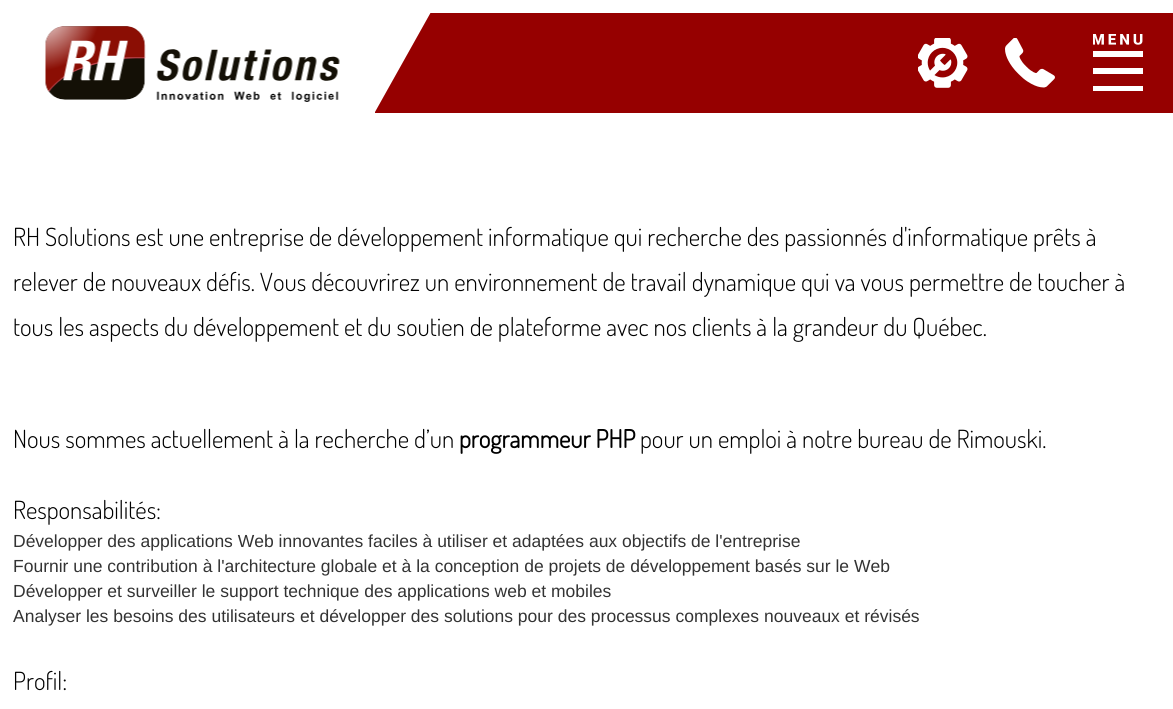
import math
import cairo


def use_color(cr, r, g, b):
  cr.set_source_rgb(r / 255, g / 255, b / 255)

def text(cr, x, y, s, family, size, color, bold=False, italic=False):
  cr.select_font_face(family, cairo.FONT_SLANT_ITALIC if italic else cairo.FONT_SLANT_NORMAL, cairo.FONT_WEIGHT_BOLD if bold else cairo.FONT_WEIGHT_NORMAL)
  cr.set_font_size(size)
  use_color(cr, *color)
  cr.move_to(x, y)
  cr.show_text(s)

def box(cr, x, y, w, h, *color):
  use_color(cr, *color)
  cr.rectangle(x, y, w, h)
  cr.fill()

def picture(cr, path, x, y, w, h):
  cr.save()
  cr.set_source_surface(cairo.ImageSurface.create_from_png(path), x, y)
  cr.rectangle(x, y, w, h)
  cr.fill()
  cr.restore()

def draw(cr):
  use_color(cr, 255, 255, 255)
  cr.paint()
  box(cr, 375, 13, 798, 100, 150, 0, 0)
  picture(cr, "img_01.png", 45, 26, 295, 76)
  use_color(cr, 255, 255, 255)
  cr.new_path()
  cr.move_to(375, 12)
  cr.line_to(431, 12)
  cr.line_to(375, 112)
  cr.close_path()
  cr.fill()
  picture(cr, "img_02.png", 918, 38, 50, 50)
  picture(cr, "img_03.png", 1005, 38, 50, 50)
  picture(cr, "img_04.png", 1093, 34, 50, 57)
  text(cr, 13, 246, "RH Solutions est une entreprise de développement informatique qui recherche des passionnés d'informatique prêts à", "Dosis Light", 25, (0, 0, 0))
  text(cr, 13, 291, "relever de nouveaux défis. Vous découvrirez un environnement de travail dynamique qui va vous permettre de toucher à", "Dosis Light", 25, (0, 0, 0))
  text(cr, 13, 336, "tous les aspects du développement et du soutien de plateforme avec nos clients à la grandeur du Québec.", "Dosis Light", 25, (0, 0, 0))
  text(cr, 13, 448, "Nous sommes actuellement à la recherche d’un", "Dosis Light", 25, (0, 0, 0))
  text(cr, 459, 448, "programmeur PHP", "Dosis", 25, (0, 0, 0), bold=True)
  text(cr, 640, 448, "pour un emploi à notre bureau de Rimouski.", "Dosis Light", 25, (0, 0, 0))
  text(cr, 13, 519, "Responsabilités:", "Dosis Light", 25, (0, 0, 0))
  text(cr, 13, 547, "Développer des applications Web innovantes faciles à utiliser et adaptées aux objectifs de l'entreprise", "Liberation Sans", 17.5, (51, 51, 51))
  text(cr, 13, 572, "Fournir une contribution à l'architecture globale et à la conception de projets de développement basés sur le Web", "Liberation Sans", 17.5, (51, 51, 51))
  text(cr, 13, 597, "Développer et surveiller le support technique des applications web et mobiles", "Liberation Sans", 17.5, (51, 51, 51))
  text(cr, 13, 622, "Analyser les besoins des utilisateurs et développer des solutions pour des processus complexes nouveaux et révisés", "Liberation Sans", 17.5, (51, 51, 51))
  text(cr, 13, 690, "Profil:", "Dosis Light", 25, (0, 0, 0))


surface = cairo.ImageSurface(cairo.FORMAT_RGB24, 1173, 709)
cr = cairo.Context(surface)
options = cairo.FontOptions()
options.set_hint_metrics(cairo.HINT_METRICS_OFF)
options.set_hint_style(cairo.HINT_STYLE_NONE)
cr.set_font_options(options)
cr.set_miter_limit(4)
draw(cr)
surface.write_to_png("out.png")
